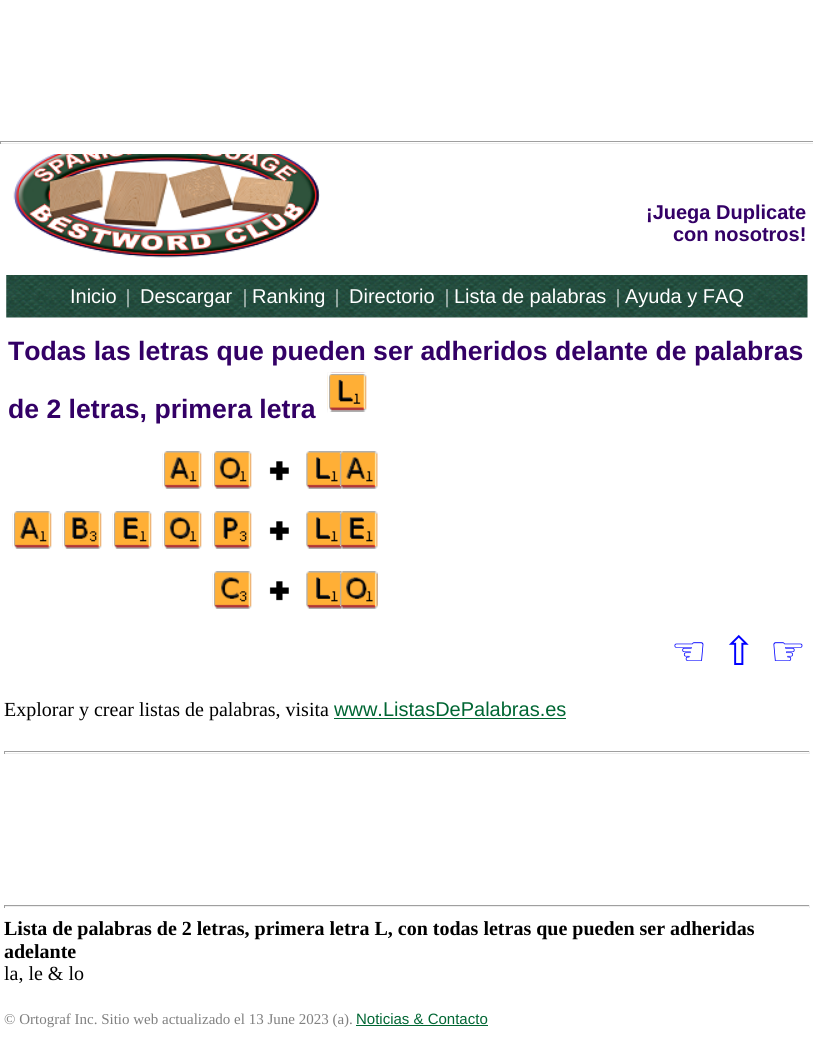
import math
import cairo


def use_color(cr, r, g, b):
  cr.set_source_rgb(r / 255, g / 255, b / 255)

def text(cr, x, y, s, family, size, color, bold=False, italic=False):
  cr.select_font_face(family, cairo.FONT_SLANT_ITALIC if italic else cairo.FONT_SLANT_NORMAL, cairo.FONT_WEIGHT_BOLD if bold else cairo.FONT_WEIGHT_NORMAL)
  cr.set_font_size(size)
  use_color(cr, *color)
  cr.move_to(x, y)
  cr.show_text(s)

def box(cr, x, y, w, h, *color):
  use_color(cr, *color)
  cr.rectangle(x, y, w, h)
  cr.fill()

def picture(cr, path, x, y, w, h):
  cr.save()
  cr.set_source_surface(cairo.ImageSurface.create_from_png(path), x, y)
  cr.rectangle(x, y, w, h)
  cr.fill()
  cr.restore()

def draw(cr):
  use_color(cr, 255, 255, 255)
  cr.paint()
  box(cr, 0, 141, 813, 1, 159, 159, 159)
  box(cr, 0, 143, 813, 1, 238, 238, 238)
  box(cr, 0, 141, 1, 3, 159, 159, 159)
  picture(cr, "img_01.png", 13, 154, 307, 104)
  picture(cr, "img_02.png", 6, 275, 802, 43)
  picture(cr, "img_03.png", 327, 372, 41, 41)
  cr.rectangle(328.5, 373.5, 39, 39)
  use_color(cr, 255, 255, 255)
  cr.set_line_width(1)
  cr.stroke()
  picture(cr, "img_04.png", 162, 450, 40, 40)
  cr.rectangle(163.5, 450.5, 39, 39)
  cr.stroke()
  picture(cr, "img_05.png", 212, 450, 40, 40)
  cr.rectangle(213.5, 450.5, 39, 39)
  cr.stroke()
  picture(cr, "img_06.png", 269, 461, 20, 20)
  picture(cr, "img_07.png", 306, 451, 72, 38)
  picture(cr, "img_08.png", 12, 510, 40, 40)
  cr.rectangle(13.5, 510.5, 39, 39)
  cr.stroke()
  picture(cr, "img_09.png", 62, 510, 40, 40)
  cr.rectangle(63.5, 510.5, 39, 39)
  cr.stroke()
  picture(cr, "img_10.png", 112, 510, 40, 40)
  cr.rectangle(113.5, 510.5, 39, 39)
  cr.stroke()
  picture(cr, "img_11.png", 162, 510, 40, 40)
  cr.rectangle(163.5, 510.5, 39, 39)
  cr.stroke()
  picture(cr, "img_12.png", 212, 510, 40, 40)
  cr.rectangle(213.5, 510.5, 39, 39)
  cr.stroke()
  picture(cr, "img_06.png", 269, 521, 20, 20)
  picture(cr, "img_13.png", 306, 511, 72, 38)
  picture(cr, "img_14.png", 212, 570, 40, 40)
  cr.rectangle(213.5, 570.5, 39, 39)
  cr.stroke()
  picture(cr, "img_06.png", 269, 581, 20, 20)
  picture(cr, "img_15.png", 306, 571, 72, 38)
  box(cr, 334, 718, 232, 1, 0, 102, 51)
  box(cr, 4, 751, 806, 1, 159, 159, 159)
  box(cr, 809, 751, 1, 3, 238, 238, 238)
  box(cr, 4, 753, 806, 1, 238, 238, 238)
  box(cr, 4, 751, 1, 3, 159, 159, 159)
  box(cr, 4, 905, 806, 1, 159, 159, 159)
  box(cr, 809, 905, 1, 3, 238, 238, 238)
  box(cr, 4, 906, 806, 1, 238, 238, 238)
  box(cr, 4, 905, 1, 3, 159, 159, 159)
  box(cr, 356, 1025, 132, 1, 0, 102, 51)
  text(cr, 646, 219, "¡Juega Duplicate", "Liberation Sans", 20, (51, 0, 102), bold=True)
  text(cr, 673, 241, "con nosotros!", "Liberation Sans", 20, (51, 0, 102), bold=True)
  text(cr, 70, 303, "Inicio", "Liberation Sans", 20, (255, 255, 255))
  text(cr, 126, 303, "|", "Liberation Serif", 20, (255, 255, 255))
  text(cr, 140, 303, "Descargar", "Liberation Sans", 20, (255, 255, 255))
  text(cr, 243, 303, "|", "Liberation Serif", 20, (255, 255, 255))
  text(cr, 252, 303, "Ranking", "Liberation Sans", 20, (255, 255, 255))
  text(cr, 335, 303, "|", "Liberation Serif", 20, (255, 255, 255))
  text(cr, 349, 303, "Directorio", "Liberation Sans", 20, (255, 255, 255))
  text(cr, 445, 303, "|", "Liberation Serif", 20, (255, 255, 255))
  text(cr, 454, 303, "Lista de palabras", "Liberation Sans", 20, (255, 255, 255))
  text(cr, 616, 303, "|", "Liberation Serif", 20, (255, 255, 255))
  text(cr, 625, 303, "Ayuda y FAQ", "Liberation Sans", 20, (255, 255, 255))
  text(cr, 8, 360, "Todas las letras que pueden ser adheridos delante de palabras", "Liberation Sans", 26.6, (51, 0, 102), bold=True)
  text(cr, 8, 418, "de 2 letras, primera letra", "Liberation Sans", 26.6, (51, 0, 102), bold=True)
  text(cr, 671, 665, "☜", "DejaVu Sans", 40, (0, 0, 255))
  text(cr, 722, 665, "⇧", "DejaVu Sans", 40, (0, 0, 255))
  text(cr, 770, 665, "☞", "DejaVu Sans", 40, (0, 0, 255))
  text(cr, 4, 716, "Explorar y crear listas de palabras, visita", "Liberation Serif", 20, (0, 0, 0))
  text(cr, 334, 716, "www.ListasDePalabras.es", "Liberation Sans", 20, (0, 102, 51))
  text(cr, 4, 935, "Lista de palabras de 2 letras, primera letra L, con todas letras que pueden ser adheridas", "Liberation Serif", 20, (0, 0, 0), bold=True)
  text(cr, 4, 958, "adelante", "Liberation Serif", 20, (0, 0, 0), bold=True)
  text(cr, 4, 980, "la, le & lo", "Liberation Serif", 20, (0, 0, 0))
  text(cr, 4, 1024, "© Ortograf Inc. Sitio web actualizado el 13 June 2023 (a).", "Liberation Serif", 15, (128, 128, 128))
  text(cr, 356, 1024, "Noticias & Contacto", "Liberation Sans", 15, (0, 102, 51))


surface = cairo.ImageSurface(cairo.FORMAT_RGB24, 813, 1063)
cr = cairo.Context(surface)
options = cairo.FontOptions()
options.set_hint_metrics(cairo.HINT_METRICS_OFF)
options.set_hint_style(cairo.HINT_STYLE_NONE)
cr.set_font_options(options)
cr.set_miter_limit(4)
draw(cr)
surface.write_to_png("out.png")
